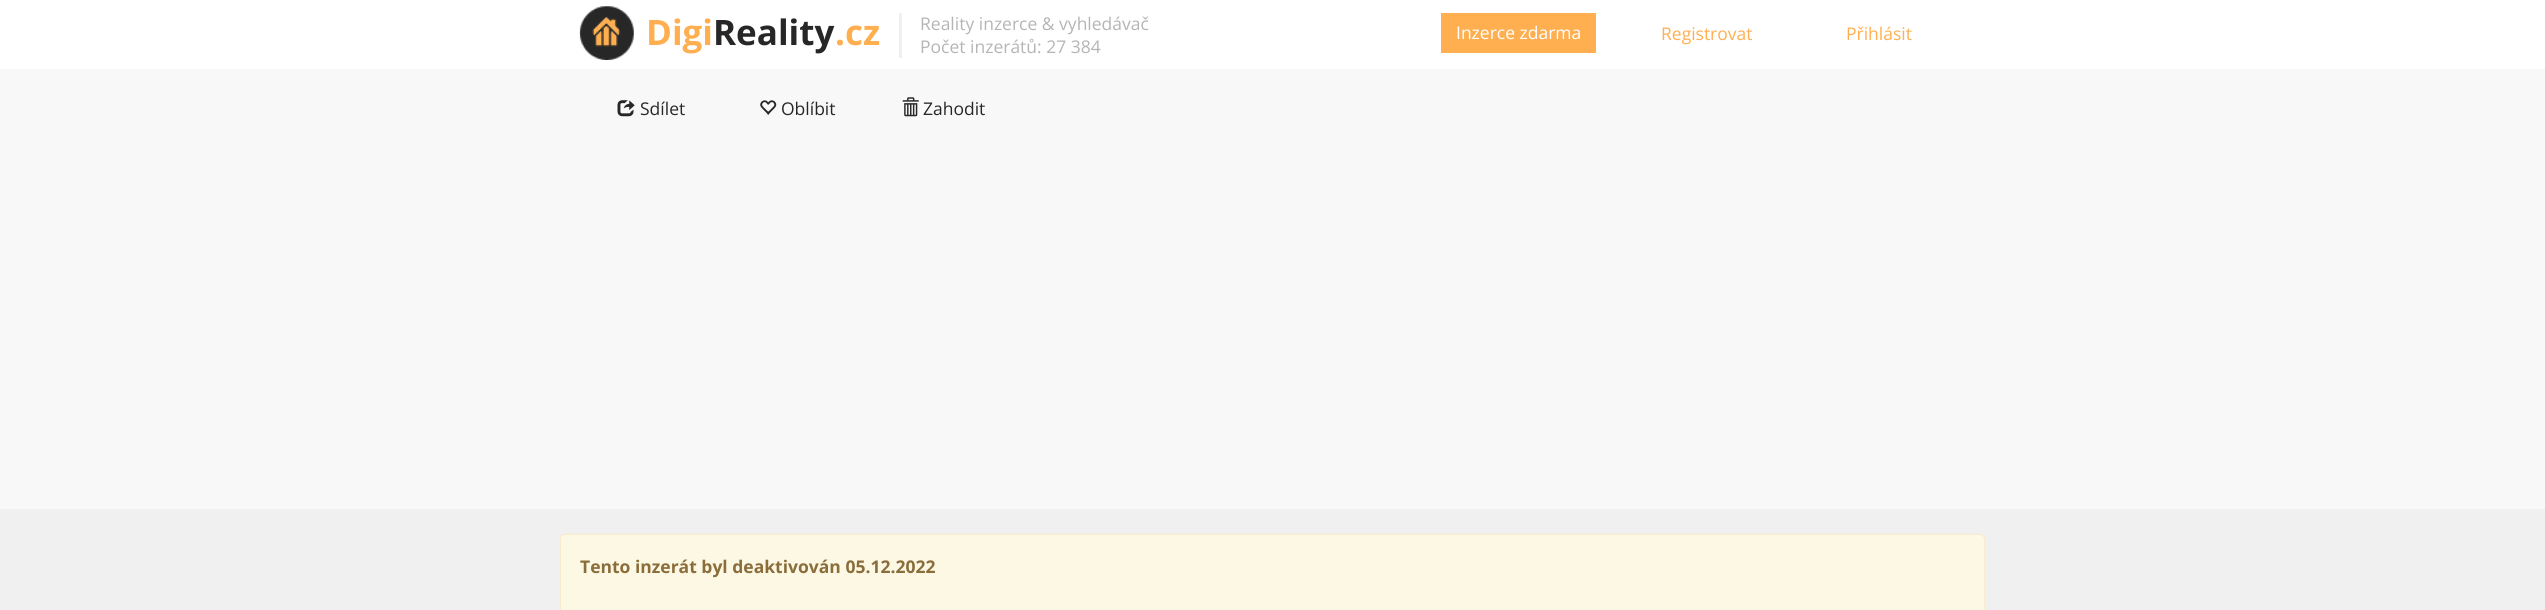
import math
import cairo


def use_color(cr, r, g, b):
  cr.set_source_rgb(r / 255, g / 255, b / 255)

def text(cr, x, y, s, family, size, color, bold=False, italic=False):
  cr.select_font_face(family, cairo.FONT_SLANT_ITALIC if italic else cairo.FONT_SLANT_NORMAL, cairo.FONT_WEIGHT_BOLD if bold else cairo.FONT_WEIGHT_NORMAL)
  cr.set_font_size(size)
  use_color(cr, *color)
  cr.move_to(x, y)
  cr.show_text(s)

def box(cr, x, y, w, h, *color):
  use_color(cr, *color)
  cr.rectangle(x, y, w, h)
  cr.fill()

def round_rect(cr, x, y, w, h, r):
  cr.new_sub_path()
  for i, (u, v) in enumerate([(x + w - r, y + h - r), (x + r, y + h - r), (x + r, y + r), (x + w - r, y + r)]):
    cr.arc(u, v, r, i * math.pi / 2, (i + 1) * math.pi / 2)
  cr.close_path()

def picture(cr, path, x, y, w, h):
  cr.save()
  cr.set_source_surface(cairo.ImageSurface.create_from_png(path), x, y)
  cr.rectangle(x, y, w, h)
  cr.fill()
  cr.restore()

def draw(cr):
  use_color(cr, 240, 240, 240)
  cr.paint()
  box(cr, 0, 0, 2545, 69, 255, 255, 255)
  picture(cr, "img_01.png", 579, 5, 55, 55)
  box(cr, 899, 13, 3, 45, 240, 240, 240)
  box(cr, 1441, 13, 155, 40, 255, 175, 80)
  box(cr, 0, 69, 2545, 440, 248, 248, 248)
  picture(cr, "img_02.png", 617, 100, 18, 17)
  picture(cr, "img_03.png", 760, 100, 17, 15)
  picture(cr, "img_04.png", 902, 97, 17, 20)
  use_color(cr, 252, 248, 227)
  round_rect(cr, 560.5, 534.5, 1424, 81, 4.5)
  cr.fill_preserve()
  use_color(cr, 250, 235, 204)
  cr.set_line_width(1)
  cr.stroke()
  text(cr, 646, 45, "Digi", "Open Sans", 35, (255, 175, 80), bold=True)
  text(cr, 713, 45, "Reality", "Open Sans", 35, (39, 39, 39), bold=True)
  text(cr, 835, 45, ".cz", "Open Sans", 35, (255, 175, 80), bold=True)
  text(cr, 920, 30, "Reality inzerce & vyhledávač", "Open Sans", 17.5, (181, 181, 181))
  text(cr, 920, 53, "Počet inzerátů: 27 384", "Open Sans", 17.5, (181, 181, 181))
  text(cr, 1456, 39, "Inzerce zdarma", "Open Sans", 17.5, (255, 255, 255))
  text(cr, 1661, 40, "Registrovat", "Open Sans", 17.5, (255, 175, 80))
  text(cr, 1846, 40, "Přihlásit", "Open Sans", 17.5, (255, 175, 80))
  text(cr, 640, 115, "Sdílet", "Open Sans", 17.5, (39, 39, 39))
  text(cr, 781, 115, "Oblíbit", "Open Sans", 17.5, (39, 39, 39))
  text(cr, 923, 115, "Zahodit", "Open Sans", 17.5, (39, 39, 39))
  text(cr, 580, 573, "Tento inzerát byl deaktivován 05.12.2022", "Open Sans", 17.5, (138, 109, 59), bold=True)


surface = cairo.ImageSurface(cairo.FORMAT_RGB24, 2545, 610)
cr = cairo.Context(surface)
options = cairo.FontOptions()
options.set_hint_metrics(cairo.HINT_METRICS_OFF)
options.set_hint_style(cairo.HINT_STYLE_NONE)
cr.set_font_options(options)
cr.set_miter_limit(4)
draw(cr)
surface.write_to_png("out.png")
